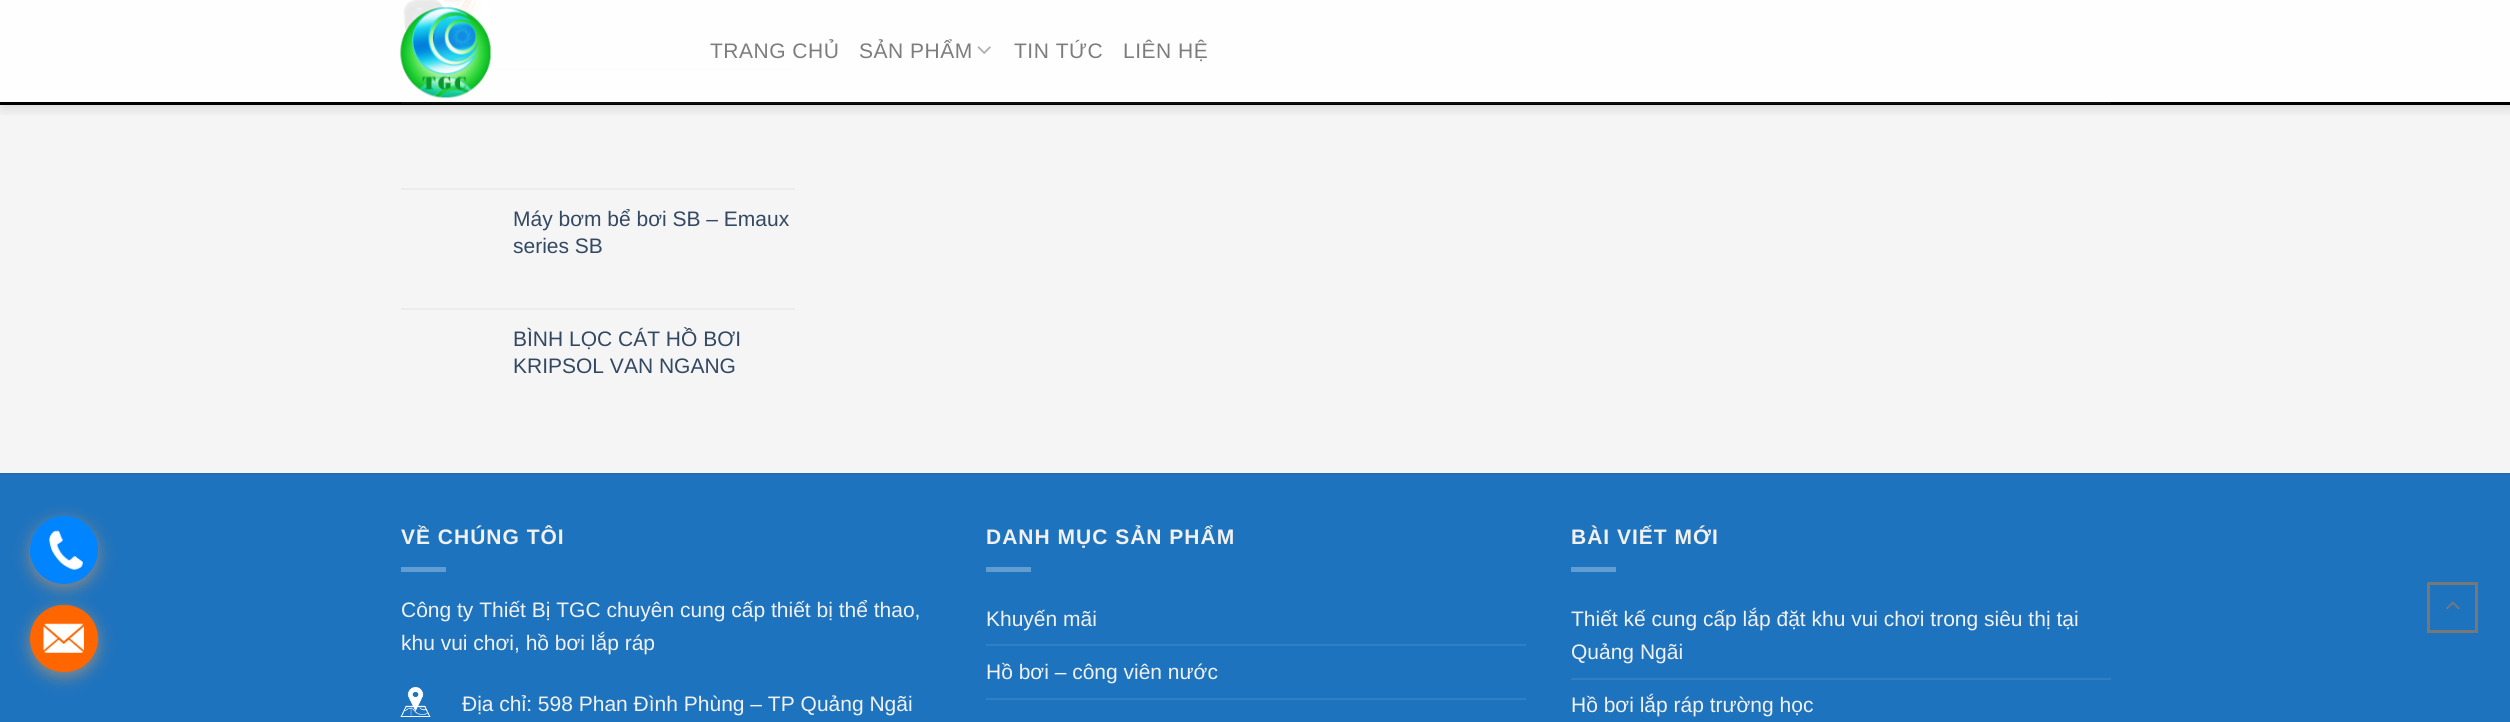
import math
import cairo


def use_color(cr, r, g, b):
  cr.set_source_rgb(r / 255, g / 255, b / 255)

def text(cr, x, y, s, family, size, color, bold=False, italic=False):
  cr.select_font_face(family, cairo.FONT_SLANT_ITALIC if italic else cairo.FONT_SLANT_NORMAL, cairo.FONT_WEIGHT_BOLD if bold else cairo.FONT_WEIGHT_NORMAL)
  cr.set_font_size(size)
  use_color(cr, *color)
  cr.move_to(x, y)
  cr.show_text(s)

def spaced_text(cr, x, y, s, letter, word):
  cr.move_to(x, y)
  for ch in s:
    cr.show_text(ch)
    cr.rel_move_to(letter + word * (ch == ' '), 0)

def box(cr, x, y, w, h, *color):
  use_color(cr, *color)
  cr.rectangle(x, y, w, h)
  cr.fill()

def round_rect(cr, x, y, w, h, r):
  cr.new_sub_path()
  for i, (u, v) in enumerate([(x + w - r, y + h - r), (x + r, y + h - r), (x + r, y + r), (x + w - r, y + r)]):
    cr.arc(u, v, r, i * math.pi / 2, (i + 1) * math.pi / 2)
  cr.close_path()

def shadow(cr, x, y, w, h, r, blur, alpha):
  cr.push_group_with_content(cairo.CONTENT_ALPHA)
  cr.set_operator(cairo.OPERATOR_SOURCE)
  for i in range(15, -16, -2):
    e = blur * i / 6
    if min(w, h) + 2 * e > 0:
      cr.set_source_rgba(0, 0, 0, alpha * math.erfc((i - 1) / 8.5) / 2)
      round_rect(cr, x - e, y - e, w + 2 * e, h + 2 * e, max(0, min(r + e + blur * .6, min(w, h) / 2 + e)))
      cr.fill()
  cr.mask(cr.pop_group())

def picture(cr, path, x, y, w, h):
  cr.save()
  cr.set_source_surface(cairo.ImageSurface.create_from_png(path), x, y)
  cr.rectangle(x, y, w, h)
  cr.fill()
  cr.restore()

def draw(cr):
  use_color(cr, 245, 245, 245)
  cr.paint()
  box(cr, 0, 475, 2510, 247, 30, 115, 190)
  use_color(cr, 136, 136, 136)
  shadow(cr, 30, 521, 68, 67, 33.5, 7.5, 1)
  use_color(cr, 0, 132, 255)
  cr.arc(64, 550, 34, 0, 2 * math.pi)
  cr.fill()
  picture(cr, "img_01.png", 49, 530, 34, 40)
  use_color(cr, 136, 136, 136)
  shadow(cr, 30, 609, 68, 68, 34, 7.5, 1)
  use_color(cr, 255, 102, 0)
  round_rect(cr, 30, 605, 68, 67, 33.5)
  cr.fill()
  picture(cr, "img_02.png", 43, 623, 41, 30)
  picture(cr, "img_05.png", 401, 0, 90, 54)
  box(cr, 401, 68, 394, 2, 236, 236, 236)
  cr.save()
  cr.rectangle(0, 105, 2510, 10)
  cr.clip()
  use_color(cr, 0, 0, 0)
  shadow(cr, 2, 2, 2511, 105, 0, 7.5, 0.15)
  cr.restore()
  cr.set_source_rgba(1, 1, 1, 0.9)
  cr.rectangle(0, 0, 2510, 102)
  cr.fill()
  box(cr, 0, 102, 2510, 3, 0, 0, 0)
  picture(cr, "img_03.png", 400, 7, 91, 91)
  picture(cr, "img_04.png", 977, 46, 14, 8)
  box(cr, 401, 102, 1710, 2, 12, 12, 12)
  box(cr, 401, 188, 394, 2, 236, 236, 236)
  box(cr, 401, 308, 394, 2, 236, 236, 236)
  box(cr, 0, 473, 2510, 2, 29, 109, 181)
  box(cr, 401, 567, 45, 5, 98, 157, 210)
  picture(cr, "img_06.png", 400, 687, 31, 30)
  box(cr, 986, 567, 45, 5, 98, 157, 210)
  box(cr, 986, 644, 540, 2, 48, 126, 195)
  box(cr, 986, 698, 540, 2, 48, 126, 195)
  box(cr, 1571, 567, 45, 5, 98, 157, 210)
  box(cr, 1571, 678, 540, 2, 48, 126, 195)
  cr.rectangle(2428.5, 583.5, 48, 48)
  use_color(cr, 119, 119, 119)
  cr.set_line_width(3)
  cr.stroke()
  picture(cr, "img_07.png", 2446, 601, 14, 9)
  cr.select_font_face("Liberation Sans")
  cr.set_font_size(21)
  use_color(cr, 125, 125, 125)
  spaced_text(cr, 710, 58, "TRANG CHỦ", 0.5, 0)
  spaced_text(cr, 859, 58, "SẢN PHẨM", 0.5, 0)
  spaced_text(cr, 1014, 58, "TIN TỨC", 0.5, 0)
  spaced_text(cr, 1123, 58, "LIÊN HỆ", 0.5, 0)
  text(cr, 513, 226, "Máy bơm bể bơi SB – Emaux", "Liberation Sans", 21, (51, 72, 98))
  text(cr, 513, 253, "series SB", "Liberation Sans", 21, (51, 72, 98))
  text(cr, 513, 346, "BÌNH LỌC CÁT HỒ BƠI", "Liberation Sans", 21, (51, 72, 98))
  text(cr, 513, 373, "KRIPSOL VAN NGANG", "Liberation Sans", 21, (51, 72, 98))
  cr.select_font_face("Liberation Sans", cairo.FONT_SLANT_NORMAL, cairo.FONT_WEIGHT_BOLD)
  use_color(cr, 241, 241, 241)
  spaced_text(cr, 401, 544, "VỀ CHÚNG TÔI", 1, 0)
  text(cr, 401, 617, "Công ty Thiết Bị TGC chuyên cung cấp thiết bị thể thao,", "Liberation Sans", 21, (241, 241, 241))
  text(cr, 401, 650, "khu vui chơi, hồ bơi lắp ráp", "Liberation Sans", 21, (241, 241, 241))
  text(cr, 462, 711, "Địa chỉ: 598 Phan Đình Phùng – TP Quảng Ngãi", "Liberation Sans", 21, (241, 241, 241))
  cr.select_font_face("Liberation Sans", cairo.FONT_SLANT_NORMAL, cairo.FONT_WEIGHT_BOLD)
  spaced_text(cr, 986, 544, "DANH MỤC SẢN PHẨM", 1, 0)
  text(cr, 986, 626, "Khuyến mãi", "Liberation Sans", 21, (241, 241, 241))
  text(cr, 986, 679, "Hồ bơi – công viên nước", "Liberation Sans", 21, (241, 241, 241))
  cr.select_font_face("Liberation Sans", cairo.FONT_SLANT_NORMAL, cairo.FONT_WEIGHT_BOLD)
  spaced_text(cr, 1571, 544, "BÀI VIẾT MỚI", 1, 0)
  text(cr, 1571, 626, "Thiết kế cung cấp lắp đặt khu vui chơi trong siêu thị tại", "Liberation Sans", 21, (241, 241, 241))
  text(cr, 1571, 659, "Quảng Ngãi", "Liberation Sans", 21, (241, 241, 241))
  text(cr, 1571, 712, "Hồ bơi lắp ráp trường học", "Liberation Sans", 21, (241, 241, 241))


surface = cairo.ImageSurface(cairo.FORMAT_RGB24, 2510, 722)
cr = cairo.Context(surface)
options = cairo.FontOptions()
options.set_hint_metrics(cairo.HINT_METRICS_OFF)
options.set_hint_style(cairo.HINT_STYLE_NONE)
cr.set_font_options(options)
cr.set_miter_limit(4)
draw(cr)
surface.write_to_png("out.png")
